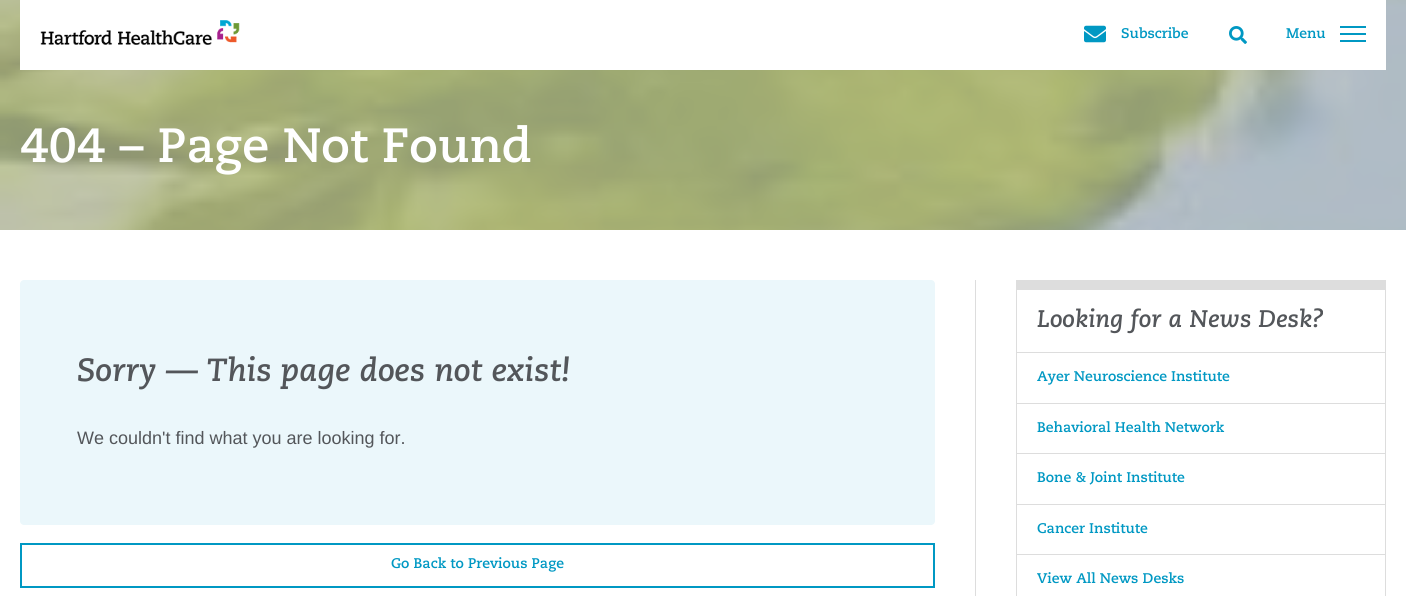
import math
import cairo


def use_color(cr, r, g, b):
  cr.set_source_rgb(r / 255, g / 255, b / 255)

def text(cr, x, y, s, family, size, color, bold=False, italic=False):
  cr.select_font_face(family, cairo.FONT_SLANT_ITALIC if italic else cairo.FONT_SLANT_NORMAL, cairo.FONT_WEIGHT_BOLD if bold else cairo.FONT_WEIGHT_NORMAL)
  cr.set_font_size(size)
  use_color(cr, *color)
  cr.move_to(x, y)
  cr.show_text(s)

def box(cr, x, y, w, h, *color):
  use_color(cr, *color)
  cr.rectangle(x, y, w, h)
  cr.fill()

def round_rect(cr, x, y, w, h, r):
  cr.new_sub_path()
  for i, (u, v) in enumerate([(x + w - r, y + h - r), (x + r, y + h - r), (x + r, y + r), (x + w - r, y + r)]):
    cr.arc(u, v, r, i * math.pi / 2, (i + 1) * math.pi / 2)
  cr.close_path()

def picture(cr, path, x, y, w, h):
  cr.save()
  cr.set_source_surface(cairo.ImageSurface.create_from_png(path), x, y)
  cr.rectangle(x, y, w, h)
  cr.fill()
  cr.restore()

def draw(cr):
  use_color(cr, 255, 255, 255)
  cr.paint()
  picture(cr, "img_04.png", 0, 0, 1406, 230)
  box(cr, 20, 0, 1366, 70, 255, 255, 255)
  picture(cr, "img_01.png", 40, 20, 200, 25)
  picture(cr, "img_02.png", 1084, 25, 22, 18)
  picture(cr, "img_03.png", 1229, 26, 18, 18)
  box(cr, 1340, 26, 26, 2, 0, 152, 195)
  box(cr, 1340, 33, 26, 2, 0, 152, 195)
  box(cr, 1340, 40, 26, 2, 0, 152, 195)
  box(cr, 975, 280, 1, 316, 221, 221, 221)
  use_color(cr, 235, 247, 251)
  round_rect(cr, 20, 280, 915, 245, 4)
  cr.fill()
  cr.rectangle(21, 544, 913, 43)
  use_color(cr, 0, 152, 195)
  cr.stroke()
  box(cr, 1017, 280, 368, 10, 221, 221, 221)
  box(cr, 1385, 280, 1, 316, 221, 221, 221)
  box(cr, 1016, 280, 1, 316, 221, 221, 221)
  box(cr, 1017, 352, 368, 1, 221, 221, 221)
  box(cr, 1017, 403, 368, 1, 221, 221, 221)
  box(cr, 1017, 453, 368, 1, 221, 221, 221)
  box(cr, 1017, 504, 368, 1, 221, 221, 221)
  box(cr, 1017, 554, 368, 1, 221, 221, 221)
  text(cr, 1121, 38, "Subscribe", "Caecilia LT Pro", 14, (0, 152, 195), bold=True)
  text(cr, 1286, 38, "Menu", "Caecilia LT Pro", 14, (0, 152, 195), bold=True)
  text(cr, 20, 162, "404 – Page Not Found", "Caecilia LT Pro", 48, (255, 255, 255), bold=True)
  text(cr, 77, 381, "Sorry — This page does not exist!", "Caecilia LT Pro", 32, (83, 86, 90), bold=True, italic=True)
  text(cr, 77, 444, "We couldn't find what you are looking for.", "Liberation Sans", 18, (83, 86, 90))
  text(cr, 391, 568, "Go Back to Previous Page", "Caecilia LT Pro", 14, (0, 152, 195), bold=True)
  text(cr, 1037, 327, "Looking for a News Desk?", "Caecilia LT Pro", 24, (83, 86, 90), bold=True, italic=True)
  text(cr, 1037, 381, "Ayer Neuroscience Institute", "Caecilia LT Pro", 14, (0, 152, 195), bold=True)
  text(cr, 1037, 432, "Behavioral Health Network", "Caecilia LT Pro", 14, (0, 152, 195), bold=True)
  text(cr, 1037, 482, "Bone & Joint Institute", "Caecilia LT Pro", 14, (0, 152, 195), bold=True)
  text(cr, 1037, 533, "Cancer Institute", "Caecilia LT Pro", 14, (0, 152, 195), bold=True)
  text(cr, 1037, 583, "View All News Desks", "Caecilia LT Pro", 14, (0, 152, 195), bold=True)


surface = cairo.ImageSurface(cairo.FORMAT_RGB24, 1406, 596)
cr = cairo.Context(surface)
options = cairo.FontOptions()
options.set_hint_metrics(cairo.HINT_METRICS_OFF)
options.set_hint_style(cairo.HINT_STYLE_NONE)
cr.set_font_options(options)
cr.set_miter_limit(4)
draw(cr)
surface.write_to_png("out.png")
